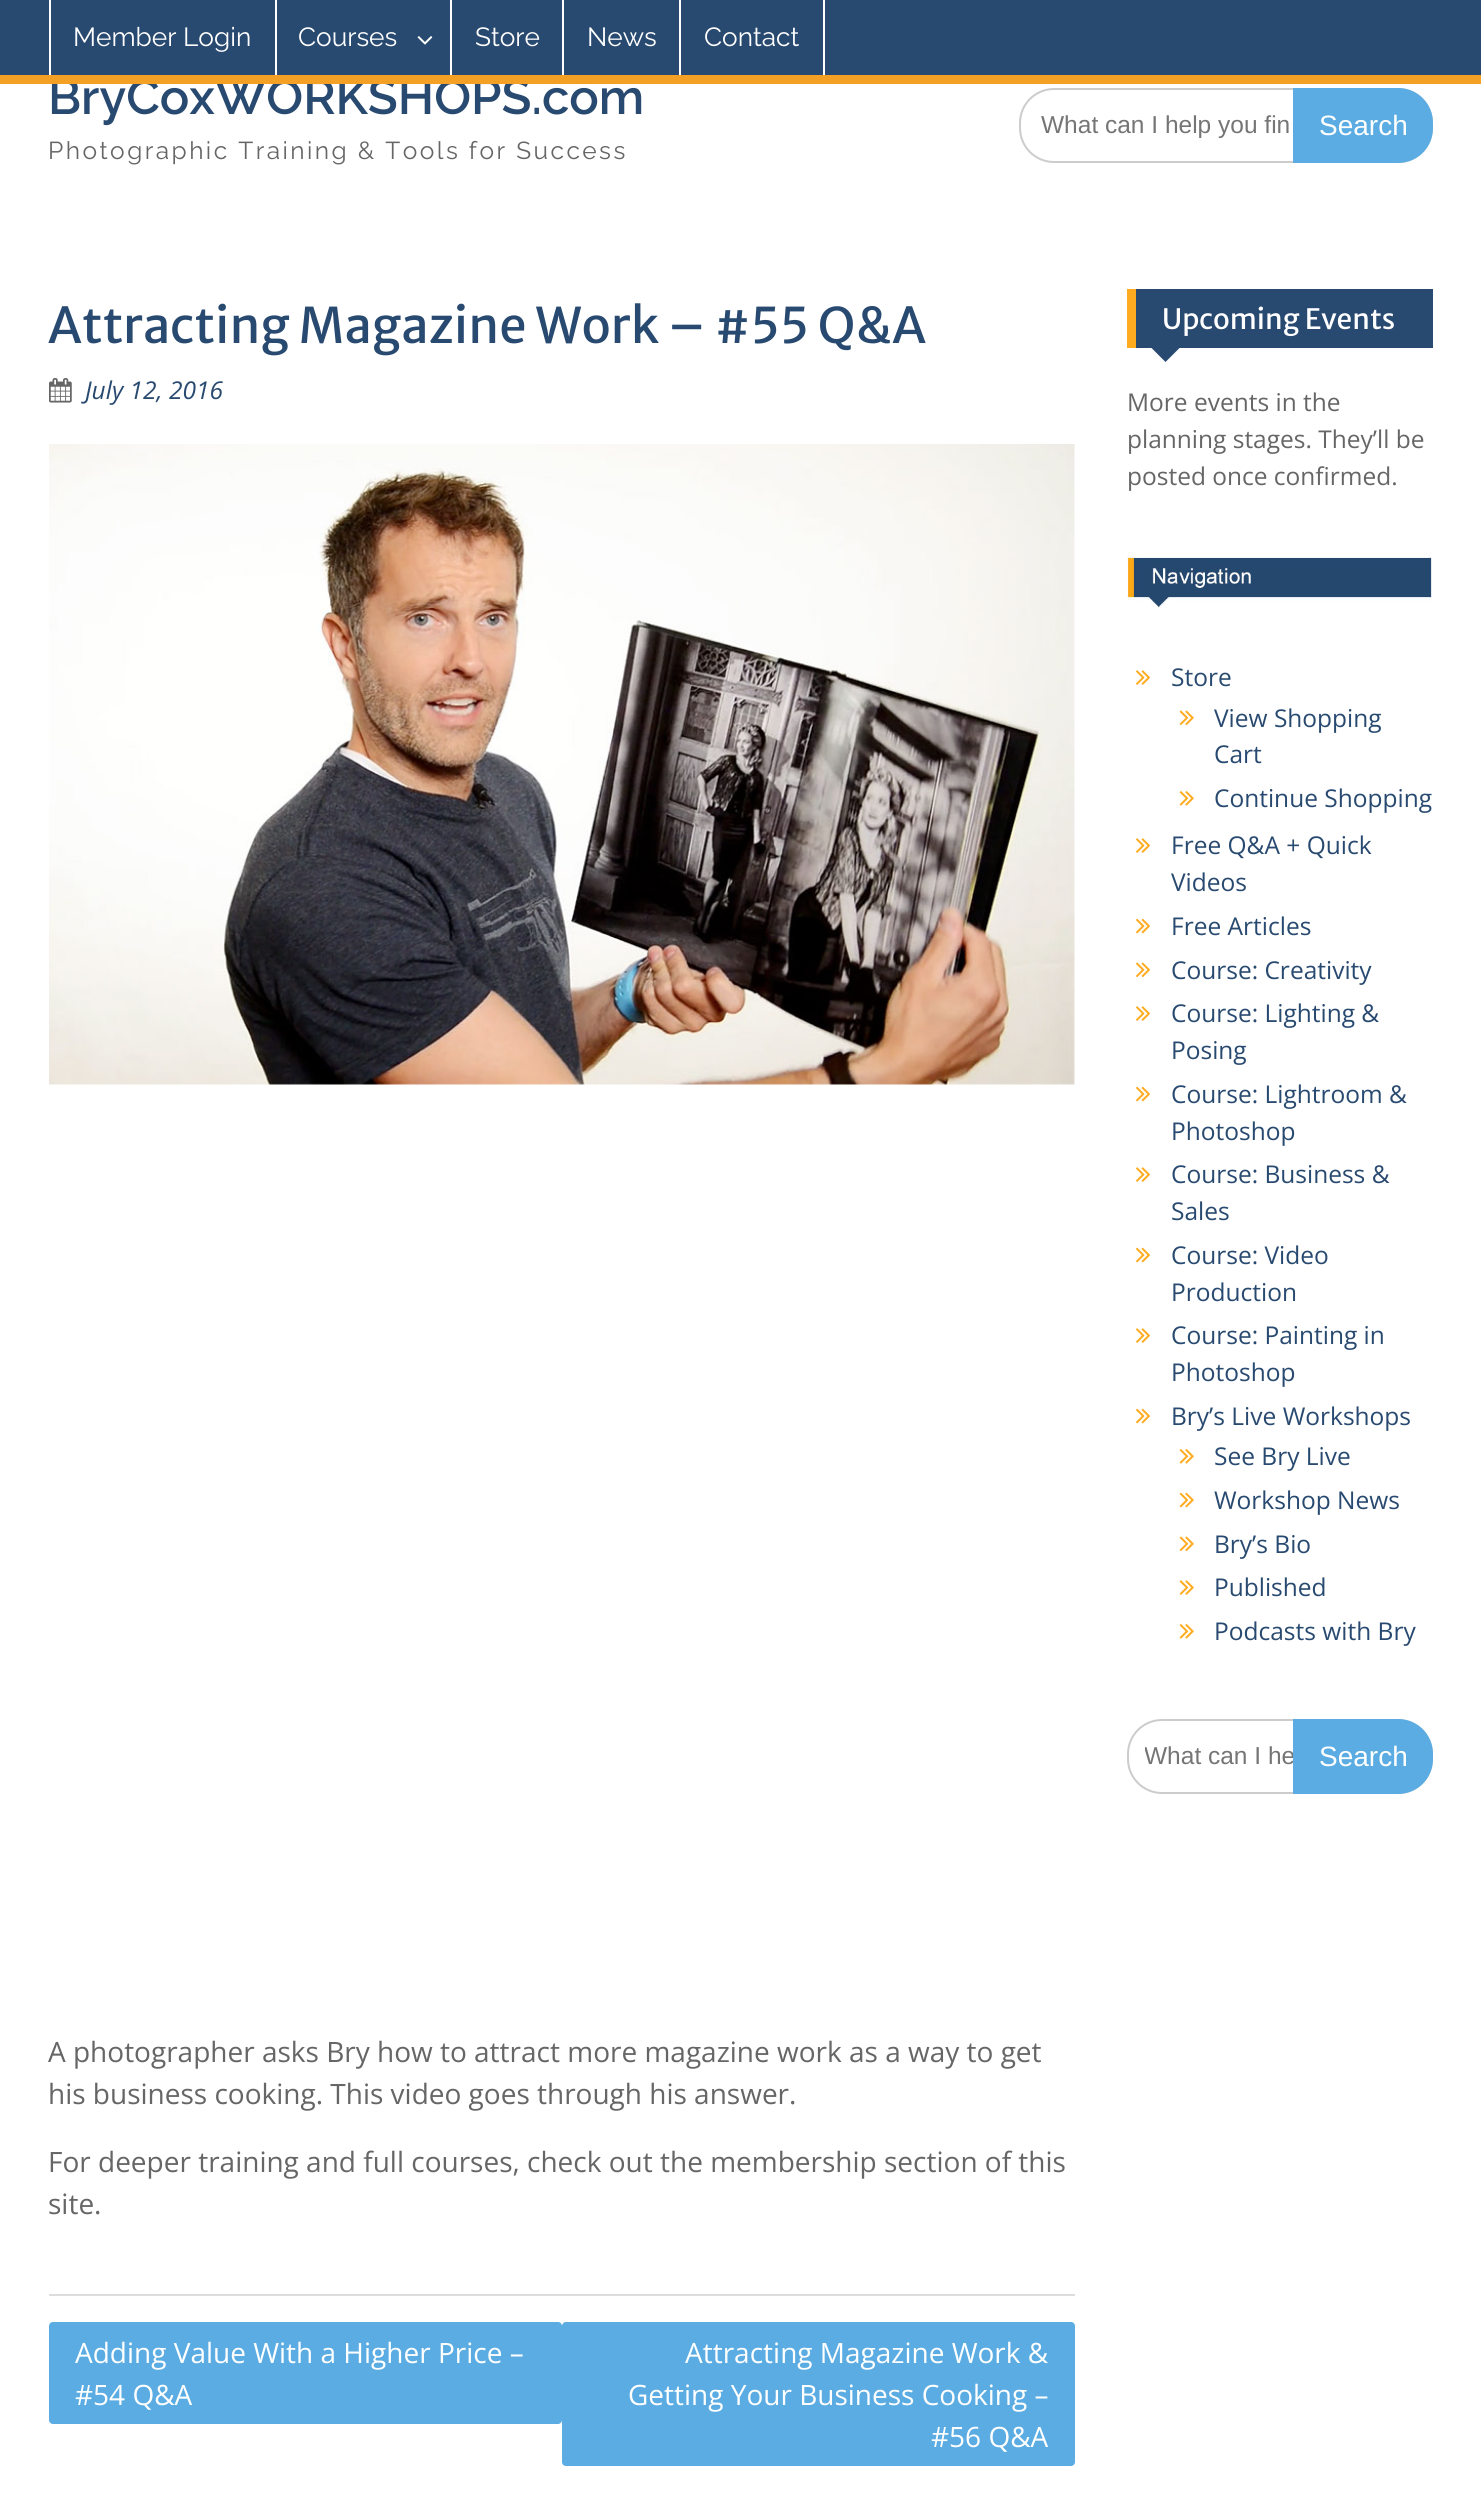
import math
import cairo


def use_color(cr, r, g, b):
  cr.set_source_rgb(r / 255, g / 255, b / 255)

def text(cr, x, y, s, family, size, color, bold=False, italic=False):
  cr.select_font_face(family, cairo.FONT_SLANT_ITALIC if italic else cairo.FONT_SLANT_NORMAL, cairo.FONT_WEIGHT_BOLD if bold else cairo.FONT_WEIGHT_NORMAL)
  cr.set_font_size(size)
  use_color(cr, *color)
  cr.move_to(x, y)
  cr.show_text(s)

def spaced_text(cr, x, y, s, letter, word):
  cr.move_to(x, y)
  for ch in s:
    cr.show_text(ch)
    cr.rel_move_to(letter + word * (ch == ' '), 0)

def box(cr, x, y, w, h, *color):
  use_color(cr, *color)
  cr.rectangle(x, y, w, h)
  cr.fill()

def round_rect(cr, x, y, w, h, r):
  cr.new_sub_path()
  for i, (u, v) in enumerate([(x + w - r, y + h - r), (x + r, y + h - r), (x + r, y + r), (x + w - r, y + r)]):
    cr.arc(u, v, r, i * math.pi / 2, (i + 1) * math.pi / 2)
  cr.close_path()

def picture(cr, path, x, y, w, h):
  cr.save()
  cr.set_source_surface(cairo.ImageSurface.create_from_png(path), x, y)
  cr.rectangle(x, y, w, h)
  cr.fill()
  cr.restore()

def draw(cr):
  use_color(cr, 255, 255, 255)
  cr.paint()
  box(cr, 0, 0, 1481, 75, 41, 74, 112)
  box(cr, 275, 0, 2, 75, 255, 255, 255)
  box(cr, 49, 0, 2, 75, 255, 255, 255)
  box(cr, 450, 0, 2, 75, 255, 255, 255)
  picture(cr, "img_01.png", 417, 36, 16, 9)
  box(cr, 562, 0, 2, 75, 255, 255, 255)
  box(cr, 679, 0, 2, 75, 255, 255, 255)
  box(cr, 823, 0, 2, 75, 255, 255, 255)
  round_rect(cr, 1020, 89, 412, 73, 34)
  use_color(cr, 204, 204, 204)
  cr.stroke()
  use_color(cr, 90, 172, 226)
  cr.new_path()
  cr.move_to(1293, 88)
  cr.line_to(1398, 88)
  cr.curve_to(1417.5, 88, 1433, 103.5, 1433, 123)
  cr.line_to(1433, 128)
  cr.curve_to(1433, 147.5, 1417.5, 163, 1398, 163)
  cr.line_to(1293, 163)
  cr.close_path()
  cr.fill()
  box(cr, 49, 2294, 1026, 2, 221, 221, 221)
  picture(cr, "img_02.png", 49, 378, 23, 25)
  picture(cr, "img_03.png", 49, 444, 1026, 641)
  use_color(cr, 90, 172, 226)
  round_rect(cr, 49, 2322, 513, 102, 4)
  cr.fill()
  round_rect(cr, 562, 2322, 513, 144, 4)
  cr.fill()
  box(cr, 1136, 289, 297, 59, 41, 74, 112)
  box(cr, 1127, 289, 9, 59, 255, 171, 31)
  use_color(cr, 41, 74, 112)
  cr.new_path()
  cr.move_to(1150, 346.5)
  cr.line_to(1181, 346.5)
  cr.line_to(1165.5, 362)
  cr.close_path()
  cr.fill()
  picture(cr, "img_04.png", 1127, 556, 305, 53)
  picture(cr, "img_05.png", 1136, 670, 14, 15)
  picture(cr, "img_06.png", 1179, 710, 15, 16)
  picture(cr, "img_07.png", 1179, 791, 15, 15)
  picture(cr, "img_05.png", 1136, 838, 14, 15)
  picture(cr, "img_08.png", 1136, 918, 14, 16)
  picture(cr, "img_09.png", 1136, 962, 14, 16)
  picture(cr, "img_05.png", 1136, 1006, 14, 15)
  picture(cr, "img_08.png", 1136, 1086, 14, 16)
  picture(cr, "img_05.png", 1136, 1167, 14, 15)
  picture(cr, "img_08.png", 1136, 1247, 14, 16)
  picture(cr, "img_05.png", 1136, 1328, 14, 15)
  picture(cr, "img_08.png", 1136, 1408, 14, 16)
  picture(cr, "img_07.png", 1179, 1449, 15, 15)
  picture(cr, "img_10.png", 1179, 1492, 15, 16)
  picture(cr, "img_06.png", 1179, 1536, 15, 16)
  picture(cr, "img_11.png", 1179, 1580, 15, 15)
  picture(cr, "img_07.png", 1179, 1624, 15, 15)
  round_rect(cr, 1128, 1720, 304, 73, 34)
  use_color(cr, 204, 204, 204)
  cr.stroke()
  text(cr, 73, 46, "Member Login", "Raleway", 26.25, (255, 255, 255))
  text(cr, 298, 46, "Courses", "Raleway", 26.25, (255, 255, 255))
  text(cr, 475, 46, "Store", "Raleway", 26.25, (255, 255, 255))
  text(cr, 587, 46, "News", "Raleway", 26.25, (255, 255, 255))
  text(cr, 704, 46, "Contact", "Raleway", 26.25, (255, 255, 255))
  text(cr, 48, 114, "BryCoxWORKSHOPS.com", "Raleway SemiBold", 49, (41, 74, 112))
  box(cr, 0, 75, 1481, 9, 244, 160, 36)
  cr.select_font_face("Raleway")
  cr.set_font_size(24.5)
  use_color(cr, 102, 102, 102)
  spaced_text(cr, 48, 159, "Photographic Training & Tools for Success", 2.45, 0)
  cr.save()
  cr.rectangle(1041, 110, 280, 28)
  cr.clip()
  text(cr, 1041, 133, "What can I help you fin", "Liberation Sans", 24.5, (117, 117, 117))
  cr.restore()
  text(cr, 1319, 135, "Search", "Liberation Sans", 28, (255, 255, 255))
  text(cr, 48, 343, "Attracting Magazine Work – #55 Q&A", "Merriweather Sans", 49, (41, 74, 112))
  text(cr, 85, 399, "July 12, 2016", "Open Sans", 24.5, (41, 74, 112), italic=True)
  text(cr, 48, 2062, "A photographer asks Bry how to attract more magazine work as a way to get", "Open Sans", 28, (102, 102, 102))
  text(cr, 48, 2104, "his business cooking. This video goes through his answer.", "Open Sans", 28, (102, 102, 102))
  text(cr, 48, 2172, "For deeper training and full courses, check out the membership section of this", "Open Sans", 28, (102, 102, 102))
  text(cr, 48, 2214, "site.", "Open Sans", 28, (102, 102, 102))
  text(cr, 75, 2363, "Adding Value With a Higher Price –", "Open Sans", 28, (255, 255, 255))
  text(cr, 75, 2405, "#54 Q&A", "Open Sans", 28, (255, 255, 255))
  text(cr, 685, 2363, "Attracting Magazine Work &", "Open Sans", 28, (255, 255, 255))
  text(cr, 628, 2405, "Getting Your Business Cooking –", "Open Sans", 28, (255, 255, 255))
  text(cr, 931, 2447, "#56 Q&A", "Open Sans", 28, (255, 255, 255))
  text(cr, 1162, 329, "Upcoming Events", "Merriweather Sans", 28, (255, 255, 255))
  text(cr, 1127, 411, "More events in the", "Open Sans", 24.5, (102, 102, 102))
  text(cr, 1127, 448, "planning stages. They’ll be", "Open Sans", 24.5, (102, 102, 102))
  text(cr, 1127, 485, "posted once confirmed.", "Open Sans", 24.5, (102, 102, 102))
  text(cr, 1171, 686, "Store", "Open Sans", 24.5, (41, 74, 112))
  text(cr, 1214, 727, "View Shopping", "Open Sans", 24.5, (41, 74, 112))
  text(cr, 1214, 763, "Cart", "Open Sans", 24.5, (41, 74, 112))
  text(cr, 1214, 807, "Continue Shopping", "Open Sans", 24.5, (41, 74, 112))
  text(cr, 1171, 854, "Free Q&A + Quick", "Open Sans", 24.5, (41, 74, 112))
  text(cr, 1171, 891, "Videos", "Open Sans", 24.5, (41, 74, 112))
  text(cr, 1171, 935, "Free Articles", "Open Sans", 24.5, (41, 74, 112))
  text(cr, 1171, 979, "Course: Creativity", "Open Sans", 24.5, (41, 74, 112))
  text(cr, 1171, 1022, "Course: Lighting &", "Open Sans", 24.5, (41, 74, 112))
  text(cr, 1171, 1059, "Posing", "Open Sans", 24.5, (41, 74, 112))
  text(cr, 1171, 1103, "Course: Lightroom &", "Open Sans", 24.5, (41, 74, 112))
  text(cr, 1171, 1140, "Photoshop", "Open Sans", 24.5, (41, 74, 112))
  text(cr, 1171, 1183, "Course: Business &", "Open Sans", 24.5, (41, 74, 112))
  text(cr, 1171, 1220, "Sales", "Open Sans", 24.5, (41, 74, 112))
  text(cr, 1171, 1264, "Course: Video", "Open Sans", 24.5, (41, 74, 112))
  text(cr, 1171, 1301, "Production", "Open Sans", 24.5, (41, 74, 112))
  text(cr, 1171, 1344, "Course: Painting in", "Open Sans", 24.5, (41, 74, 112))
  text(cr, 1171, 1381, "Photoshop", "Open Sans", 24.5, (41, 74, 112))
  text(cr, 1171, 1425, "Bry’s Live Workshops", "Open Sans", 24.5, (41, 74, 112))
  text(cr, 1214, 1465, "See Bry Live", "Open Sans", 24.5, (41, 74, 112))
  text(cr, 1214, 1509, "Workshop News", "Open Sans", 24.5, (41, 74, 112))
  text(cr, 1214, 1553, "Bry’s Bio", "Open Sans", 24.5, (41, 74, 112))
  text(cr, 1214, 1596, "Published", "Open Sans", 24.5, (41, 74, 112))
  text(cr, 1214, 1640, "Podcasts with Bry", "Open Sans", 24.5, (41, 74, 112))
  cr.save()
  cr.rectangle(1145, 1741, 203, 28)
  cr.clip()
  text(cr, 1144, 1764, "What can I he", "Liberation Sans", 24.5, (117, 117, 117))
  cr.restore()
  use_color(cr, 90, 172, 226)
  cr.new_path()
  cr.move_to(1293, 1719)
  cr.line_to(1398, 1719)
  cr.curve_to(1417.5, 1719, 1433, 1734.5, 1433, 1754)
  cr.line_to(1433, 1759)
  cr.curve_to(1433, 1778.5, 1417.5, 1794, 1398, 1794)
  cr.line_to(1293, 1794)
  cr.close_path()
  cr.fill()
  text(cr, 1319, 1766, "Search", "Liberation Sans", 28, (255, 255, 255))


surface = cairo.ImageSurface(cairo.FORMAT_RGB24, 1481, 2502)
cr = cairo.Context(surface)
options = cairo.FontOptions()
options.set_hint_metrics(cairo.HINT_METRICS_OFF)
options.set_hint_style(cairo.HINT_STYLE_NONE)
cr.set_font_options(options)
cr.set_miter_limit(4)
draw(cr)
surface.write_to_png("out.png")
